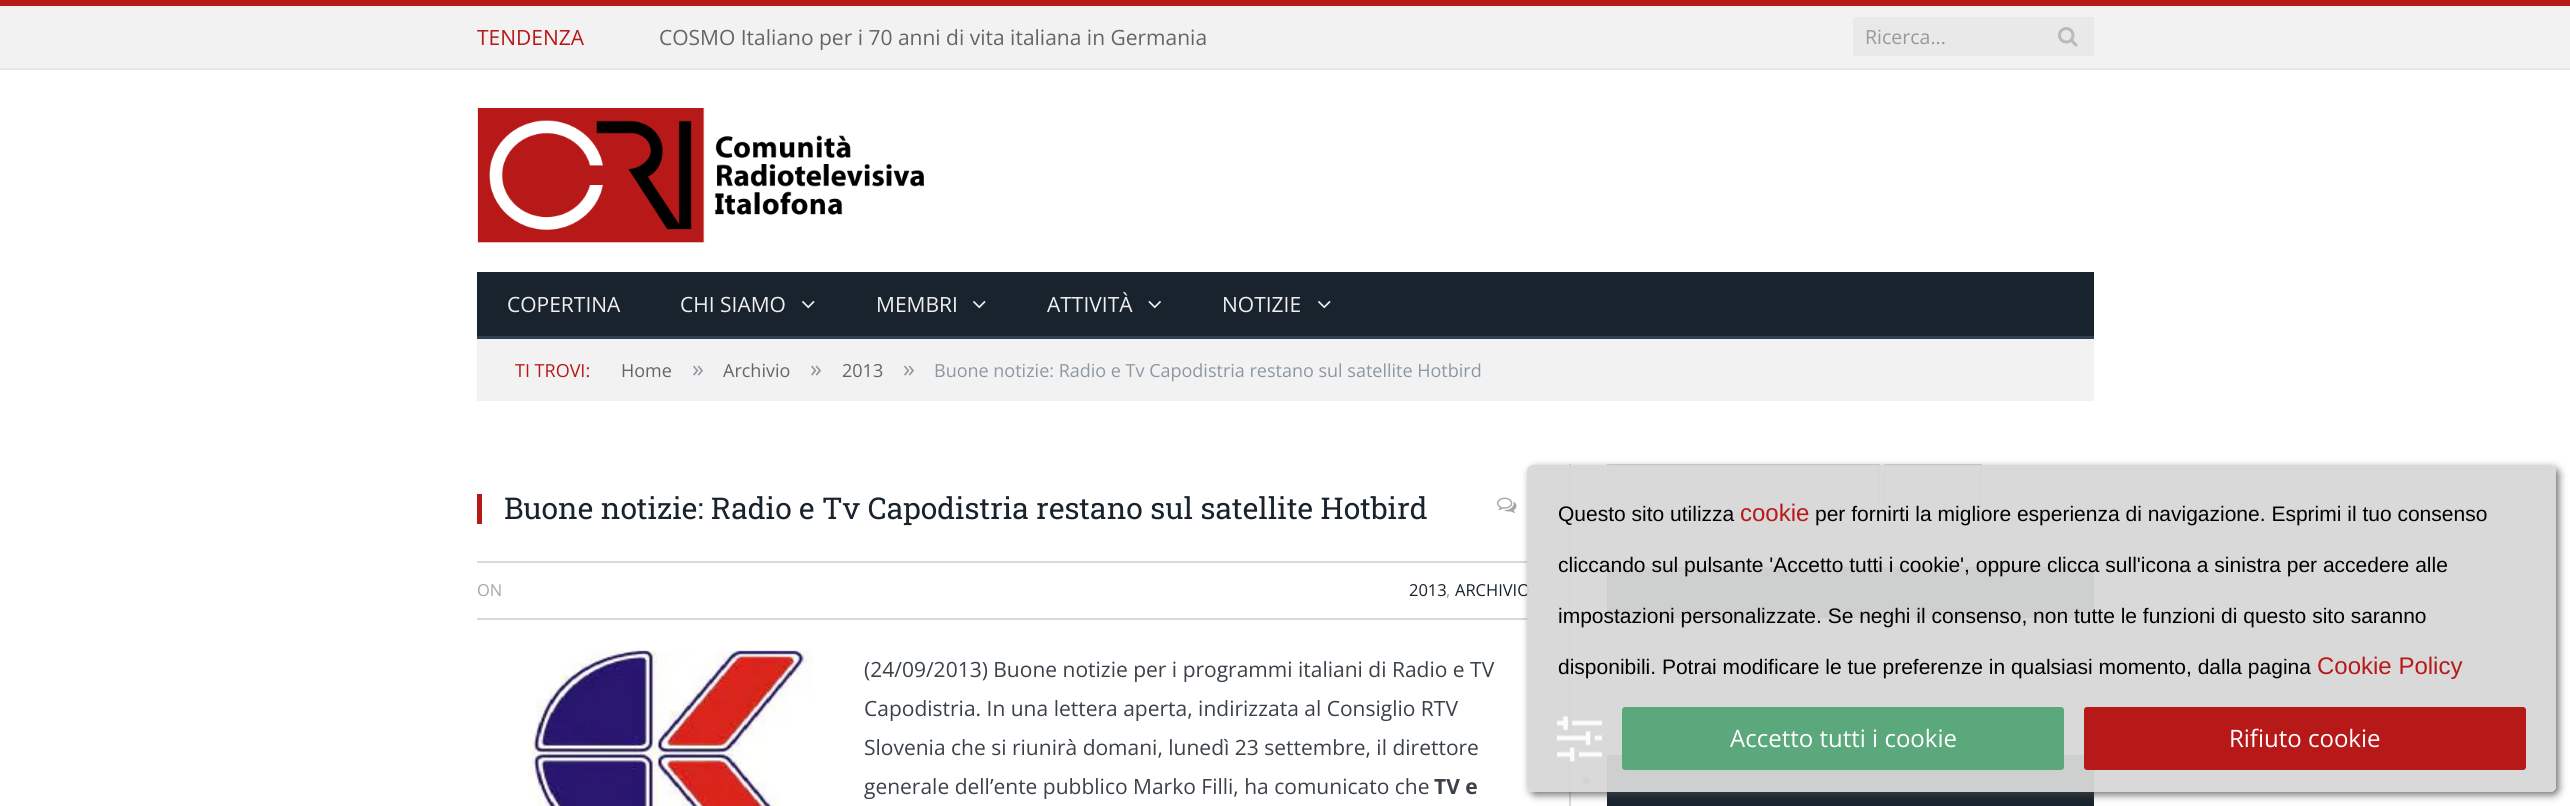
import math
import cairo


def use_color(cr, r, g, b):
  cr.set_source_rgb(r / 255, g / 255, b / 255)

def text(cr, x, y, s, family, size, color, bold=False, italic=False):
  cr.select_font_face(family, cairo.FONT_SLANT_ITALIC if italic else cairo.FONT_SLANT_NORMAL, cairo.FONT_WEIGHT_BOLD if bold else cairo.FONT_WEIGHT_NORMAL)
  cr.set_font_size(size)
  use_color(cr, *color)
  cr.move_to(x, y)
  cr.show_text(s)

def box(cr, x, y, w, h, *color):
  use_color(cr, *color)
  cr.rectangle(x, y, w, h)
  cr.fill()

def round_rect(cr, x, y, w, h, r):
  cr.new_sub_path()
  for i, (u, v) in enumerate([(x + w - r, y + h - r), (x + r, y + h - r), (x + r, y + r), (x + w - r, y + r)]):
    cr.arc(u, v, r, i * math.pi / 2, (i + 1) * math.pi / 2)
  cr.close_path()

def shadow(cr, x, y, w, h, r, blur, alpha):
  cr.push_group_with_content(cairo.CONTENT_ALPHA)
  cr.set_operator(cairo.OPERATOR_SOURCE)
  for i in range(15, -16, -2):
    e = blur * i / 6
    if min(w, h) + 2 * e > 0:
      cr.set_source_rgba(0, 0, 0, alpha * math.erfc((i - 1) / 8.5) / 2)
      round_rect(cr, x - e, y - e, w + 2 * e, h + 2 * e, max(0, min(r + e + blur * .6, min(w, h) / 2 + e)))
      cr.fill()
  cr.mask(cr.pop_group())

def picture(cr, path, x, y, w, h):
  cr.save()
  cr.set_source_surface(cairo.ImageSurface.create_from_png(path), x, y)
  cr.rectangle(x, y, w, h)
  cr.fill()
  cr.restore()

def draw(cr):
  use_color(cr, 255, 255, 255)
  cr.paint()
  box(cr, 0, 6, 2570, 62, 242, 242, 242)
  box(cr, 0, 0, 2570, 6, 183, 25, 24)
  box(cr, 0, 68, 2570, 2, 231, 231, 231)
  box(cr, 1853, 17, 241, 39, 233, 233, 233)
  picture(cr, "img_01.png", 2058, 27, 20, 20)
  picture(cr, "img_02.png", 477, 108, 447, 135)
  box(cr, 477, 272, 1617, 64, 25, 35, 45)
  box(cr, 477, 336, 1617, 3, 47, 65, 84)
  picture(cr, "img_03.png", 802, 301, 13, 8)
  picture(cr, "img_03.png", 973, 301, 13, 8)
  picture(cr, "img_04.png", 1148, 301, 13, 8)
  picture(cr, "img_03.png", 1318, 301, 13, 8)
  box(cr, 477, 339, 1617, 62, 242, 242, 242)
  box(cr, 477, 494, 5, 30, 183, 25, 24)
  picture(cr, "img_05.png", 1497, 497, 20, 16)
  box(cr, 477, 561, 1053, 2, 217, 217, 217)
  box(cr, 477, 618, 1053, 2, 217, 217, 217)
  picture(cr, "img_06.png", 528, 650, 285, 156)
  box(cr, 1569, 464, 2, 342, 217, 217, 217)
  use_color(cr, 249, 249, 249)
  cr.rectangle(1608, 465, 271, 49)
  cr.fill_preserve()
  use_color(cr, 217, 217, 217)
  cr.stroke()
  use_color(cr, 249, 249, 249)
  cr.rectangle(1885, 465, 96, 49)
  cr.fill_preserve()
  use_color(cr, 217, 217, 217)
  cr.stroke()
  box(cr, 1607, 567, 487, 51, 25, 35, 45)
  use_color(cr, 96, 101, 105)
  round_rect(cr, 1583, 777, 7, 8, 3.5)
  cr.fill()
  box(cr, 1607, 755, 487, 51, 25, 35, 45)
  cr.save()
  cr.set_fill_rule(cairo.FILL_RULE_EVEN_ODD)
  cr.new_path()
  cr.move_to(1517, 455)
  cr.line_to(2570, 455)
  cr.line_to(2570, 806)
  cr.line_to(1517, 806)
  cr.close_path()
  cr.move_to(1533, 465)
  cr.line_to(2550, 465)
  cr.curve_to(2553.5, 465, 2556, 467.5, 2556, 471)
  cr.line_to(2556, 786)
  cr.curve_to(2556, 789.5, 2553.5, 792, 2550, 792)
  cr.line_to(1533, 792)
  cr.curve_to(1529.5, 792, 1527, 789.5, 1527, 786)
  cr.line_to(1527, 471)
  cr.curve_to(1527, 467.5, 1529.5, 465, 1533, 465)
  cr.close_path()
  cr.clip()
  use_color(cr, 68, 68, 68)
  shadow(cr, 1530, 468, 1029, 327, 6, 4, 0.75)
  cr.restore()
  text(cr, 477, 45, "TENDENZA", "Open Sans", 21, (183, 25, 24))
  text(cr, 659, 45, "COSMO Italiano per i 70 anni di vita italiana in Germania", "Open Sans", 21, (101, 101, 101))
  text(cr, 1865, 44, "Ricerca...", "Open Sans", 19.5, (153, 153, 153))
  text(cr, 507, 312, "COPERTINA", "Open Sans", 21, (239, 239, 239))
  text(cr, 680, 312, "CHI SIAMO", "Open Sans", 21, (239, 239, 239))
  text(cr, 876, 312, "MEMBRI", "Open Sans", 21, (239, 239, 239))
  text(cr, 1047, 312, "ATTIVITÀ", "Open Sans", 21, (239, 239, 239))
  text(cr, 1222, 312, "NOTIZIE", "Open Sans", 21, (239, 239, 239))
  text(cr, 515, 377, "TI TROVI:", "Open Sans", 18, (183, 25, 24))
  text(cr, 621, 377, "Home", "Open Sans", 18, (101, 101, 101))
  text(cr, 692, 377, "»", "Open Sans", 24, (141, 151, 161))
  text(cr, 723, 377, "Archivio", "Open Sans", 18, (101, 101, 101))
  text(cr, 810, 377, "»", "Open Sans", 24, (141, 151, 161))
  text(cr, 842, 377, "2013", "Open Sans", 18, (101, 101, 101))
  text(cr, 903, 377, "»", "Open Sans", 24, (141, 151, 161))
  text(cr, 934, 377, "Buone notizie: Radio e Tv Capodistria restano sul satellite Hotbird", "Open Sans", 18, (141, 151, 161))
  text(cr, 504, 519, "Buone notizie: Radio e Tv Capodistria restano sul satellite Hotbird", "Roboto Slab", 30, (25, 35, 45))
  text(cr, 477, 596, "ON", "Open Sans", 16.5, (166, 166, 166))
  text(cr, 1409, 596, "2013", "Open Sans", 16.5, (25, 35, 45))
  text(cr, 1446, 596, ",", "Open Sans", 16.5, (166, 166, 166))
  text(cr, 1455, 596, "ARCHIVIO", "Open Sans", 16.5, (25, 35, 45))
  text(cr, 864, 677, "(24/09/2013) Buone notizie per i programmi italiani di Radio e TV", "Open Sans", 21, (58, 65, 73))
  text(cr, 864, 716, "Capodistria. In una lettera aperta, indirizzata al Consiglio RTV", "Open Sans", 21, (58, 65, 73))
  text(cr, 864, 755, "Slovenia che si riunirà domani, lunedì 23 settembre, il direttore", "Open Sans", 21, (58, 65, 73))
  text(cr, 864, 794, "generale dell’ente pubblico Marko Filli, ha comunicato che", "Open Sans", 21, (58, 65, 73))
  text(cr, 1434, 794, "TV e", "Open Sans", 21, (58, 65, 73), bold=True)
  cr.set_source_rgba(0.847, 0.847, 0.847, 0.95)
  round_rect(cr, 1527, 465, 1029, 327, 6)
  cr.fill()
  text(cr, 1558, 521, "Questo sito utilizza", "Liberation Sans", 21, (0, 0, 0))
  text(cr, 1740, 521, "cookie", "Liberation Sans", 24, (183, 25, 24))
  text(cr, 1815, 521, "per fornirti la migliore esperienza di navigazione. Esprimi il tuo consenso", "Liberation Sans", 21, (0, 0, 0))
  text(cr, 1558, 572, "cliccando sul pulsante 'Accetto tutti i cookie', oppure clicca sull'icona a sinistra per accedere alle", "Liberation Sans", 21, (0, 0, 0))
  text(cr, 1558, 623, "impostazioni personalizzate. Se neghi il consenso, non tutte le funzioni di questo sito saranno", "Liberation Sans", 21, (0, 0, 0))
  text(cr, 1558, 674, "disponibili. Potrai modificare le tue preferenze in qualsiasi momento, dalla pagina", "Liberation Sans", 21, (0, 0, 0))
  text(cr, 2317, 674, "Cookie Policy", "Liberation Sans", 24, (183, 25, 24))
  picture(cr, "img_07.png", 1557, 716, 45, 46)
  use_color(cr, 90, 168, 124)
  round_rect(cr, 1622, 707, 442, 63, 3)
  cr.fill()
  text(cr, 1730, 747, "Accetto tutti i cookie", "Open Sans", 24, (255, 255, 255))
  use_color(cr, 183, 25, 24)
  round_rect(cr, 2084, 707, 442, 63, 3)
  cr.fill()
  text(cr, 2229, 747, "Rifiuto cookie", "Open Sans", 24, (255, 255, 255))


surface = cairo.ImageSurface(cairo.FORMAT_RGB24, 2570, 806)
cr = cairo.Context(surface)
options = cairo.FontOptions()
options.set_hint_metrics(cairo.HINT_METRICS_OFF)
options.set_hint_style(cairo.HINT_STYLE_NONE)
cr.set_font_options(options)
cr.set_miter_limit(4)
draw(cr)
surface.write_to_png("out.png")
